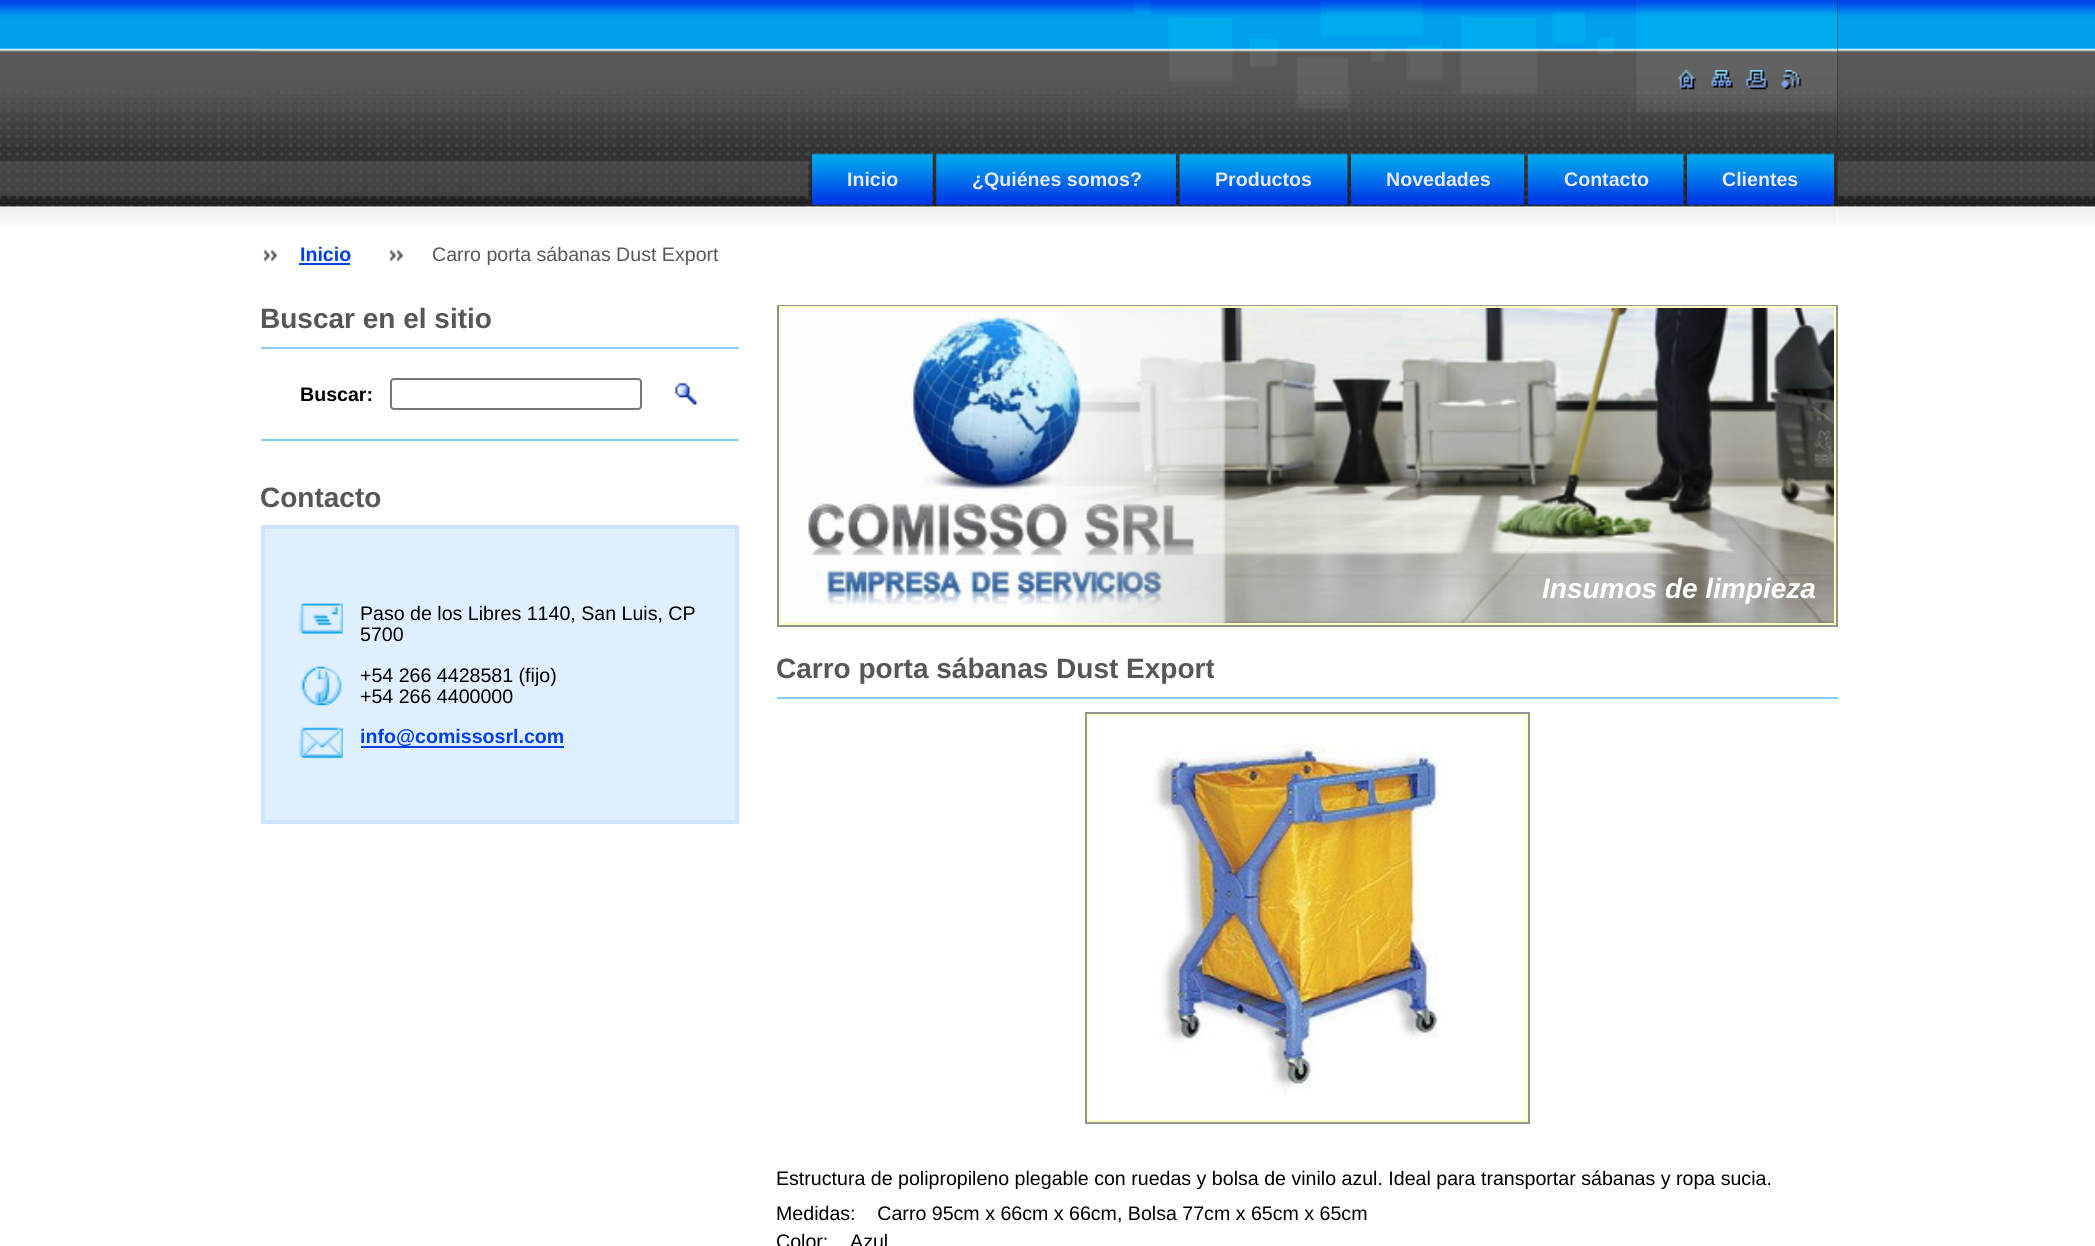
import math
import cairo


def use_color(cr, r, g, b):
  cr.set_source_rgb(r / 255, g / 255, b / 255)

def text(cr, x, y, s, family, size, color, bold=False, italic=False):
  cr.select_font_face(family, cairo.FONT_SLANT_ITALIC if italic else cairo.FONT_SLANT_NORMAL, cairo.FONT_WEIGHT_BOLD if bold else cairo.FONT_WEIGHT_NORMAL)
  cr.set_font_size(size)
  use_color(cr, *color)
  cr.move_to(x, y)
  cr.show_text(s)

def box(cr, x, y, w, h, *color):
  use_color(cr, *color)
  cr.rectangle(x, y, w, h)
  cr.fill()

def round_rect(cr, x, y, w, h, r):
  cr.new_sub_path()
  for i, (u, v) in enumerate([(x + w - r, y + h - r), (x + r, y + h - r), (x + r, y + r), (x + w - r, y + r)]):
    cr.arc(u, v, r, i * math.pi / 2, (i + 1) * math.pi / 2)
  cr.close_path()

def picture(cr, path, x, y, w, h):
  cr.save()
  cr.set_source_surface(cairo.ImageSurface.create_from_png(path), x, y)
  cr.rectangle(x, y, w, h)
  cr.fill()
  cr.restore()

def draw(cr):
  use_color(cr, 255, 255, 255)
  cr.paint()
  picture(cr, "img_01.png", 0, 0, 2095, 227)
  box(cr, 261, 0, 1577, 207, 38, 38, 38)
  picture(cr, "img_02.png", 260, 0, 1578, 207)
  picture(cr, "img_03.png", 1677, 70, 20, 20)
  picture(cr, "img_04.png", 1711, 70, 22, 18)
  picture(cr, "img_05.png", 1746, 70, 22, 20)
  picture(cr, "img_06.png", 1781, 70, 21, 20)
  box(cr, 261, 207, 1577, 20, 255, 255, 255)
  picture(cr, "img_14.png", 260, 206, 1578, 21)
  picture(cr, "img_07.png", 808, 143, 1030, 65)
  picture(cr, "img_08.png", 812, 153, 121, 53)
  picture(cr, "img_09.png", 936, 153, 240, 53)
  picture(cr, "img_10.png", 1179, 153, 169, 53)
  picture(cr, "img_11.png", 1351, 153, 174, 53)
  picture(cr, "img_12.png", 1527, 153, 157, 53)
  picture(cr, "img_13.png", 1687, 153, 147, 53)
  picture(cr, "img_15.png", 263, 249, 14, 12)
  box(cr, 299, 263, 51, 2, 0, 62, 232)
  picture(cr, "img_15.png", 389, 249, 14, 12)
  box(cr, 261, 347, 478, 2, 131, 202, 244)
  box(cr, 261, 439, 478, 2, 131, 202, 244)
  round_rect(cr, 391, 379, 250, 30, 3)
  use_color(cr, 118, 118, 118)
  cr.stroke()
  picture(cr, "img_16.png", 675, 382, 22, 23)
  use_color(cr, 224, 239, 254)
  cr.rectangle(263, 527, 474, 295)
  cr.fill_preserve()
  use_color(cr, 204, 228, 253)
  cr.set_line_width(4)
  cr.stroke()
  picture(cr, "img_17.png", 299, 603, 44, 31)
  picture(cr, "img_18.png", 300, 666, 42, 40)
  picture(cr, "img_19.png", 299, 727, 44, 32)
  box(cr, 361, 746, 203, 2, 0, 62, 232)
  cr.rectangle(778, 306, 1059, 320)
  use_color(cr, 147, 147, 147)
  cr.set_line_width(2)
  cr.stroke()
  cr.rectangle(780, 307, 1055, 317)
  use_color(cr, 255, 255, 190)
  cr.stroke()
  picture(cr, "img_20.png", 780, 308, 1054, 315)
  box(cr, 777, 697, 1061, 2, 131, 202, 244)
  cr.rectangle(1086, 713, 443, 410)
  use_color(cr, 148, 148, 150)
  cr.stroke()
  cr.rectangle(1088, 715, 439, 406)
  use_color(cr, 255, 255, 190)
  cr.stroke()
  picture(cr, "img_21.png", 1088, 715, 438, 405)
  text(cr, 847, 186, "Inicio", "Liberation Sans", 19.6, (230, 232, 250), bold=True)
  text(cr, 972, 186, "¿Quiénes somos?", "Liberation Sans", 19.6, (230, 232, 250), bold=True)
  text(cr, 1215, 186, "Productos", "Liberation Sans", 19.6, (230, 232, 250), bold=True)
  text(cr, 1386, 186, "Novedades", "Liberation Sans", 19.6, (230, 232, 250), bold=True)
  text(cr, 1564, 186, "Contacto", "Liberation Sans", 19.6, (230, 232, 250), bold=True)
  text(cr, 1722, 186, "Clientes", "Liberation Sans", 19.6, (230, 232, 250), bold=True)
  text(cr, 300, 261, "Inicio", "Liberation Sans", 19.6, (0, 62, 232), bold=True)
  text(cr, 432, 261, "Carro porta sábanas Dust Export", "Liberation Sans", 19.6, (87, 87, 87))
  text(cr, 260, 328, "Buscar en el sitio", "Liberation Sans", 28, (87, 87, 87), bold=True)
  text(cr, 300, 401, "Buscar:", "Liberation Sans", 19.6, (0, 0, 0), bold=True)
  text(cr, 260, 507, "Contacto", "Liberation Sans", 28, (87, 87, 87), bold=True)
  text(cr, 360, 620, "Paso de los Libres 1140, San Luis, CP", "Liberation Sans", 19.6, (0, 0, 0))
  text(cr, 360, 641, "5700", "Liberation Sans", 19.6, (0, 0, 0))
  text(cr, 360, 682, "+54 266 4428581 (fijo)", "Liberation Sans", 19.6, (0, 0, 0))
  text(cr, 360, 703, "+54 266 4400000", "Liberation Sans", 19.6, (0, 0, 0))
  text(cr, 360, 743, "info@comissosrl.com", "Liberation Sans", 19.6, (0, 62, 232), bold=True)
  text(cr, 1542, 598, "Insumos de limpieza", "Liberation Sans", 28, (255, 255, 255), bold=True, italic=True)
  text(cr, 776, 678, "Carro porta sábanas Dust Export", "Liberation Sans", 28, (87, 87, 87), bold=True)
  text(cr, 776, 1185, "Estructura de polipropileno plegable con ruedas y bolsa de vinilo azul. Ideal para transportar sábanas y ropa sucia.", "Liberation Sans", 19.6, (0, 0, 0))
  text(cr, 776, 1220, "Medidas:    Carro 95cm x 66cm x 66cm, Bolsa 77cm x 65cm x 65cm", "Liberation Sans", 19.6, (0, 0, 0))
  text(cr, 776, 1248, "Color:    Azul", "Liberation Sans", 19.6, (0, 0, 0))


surface = cairo.ImageSurface(cairo.FORMAT_RGB24, 2095, 1246)
cr = cairo.Context(surface)
options = cairo.FontOptions()
options.set_hint_metrics(cairo.HINT_METRICS_OFF)
options.set_hint_style(cairo.HINT_STYLE_NONE)
cr.set_font_options(options)
cr.set_miter_limit(4)
draw(cr)
surface.write_to_png("out.png")
